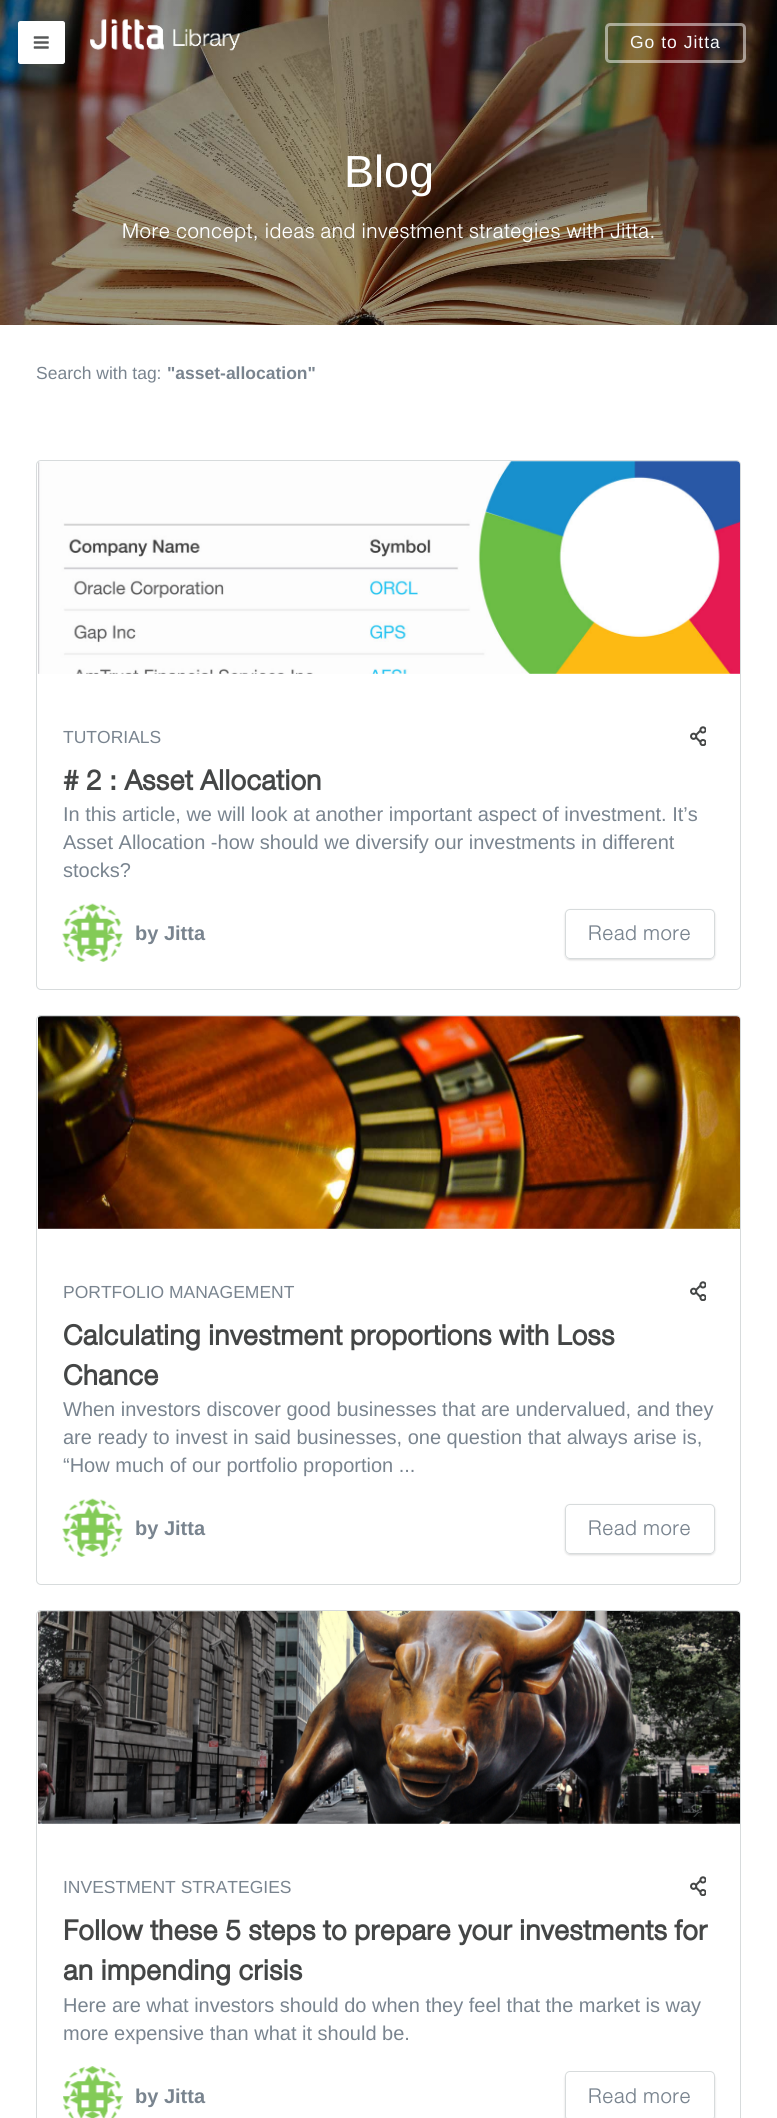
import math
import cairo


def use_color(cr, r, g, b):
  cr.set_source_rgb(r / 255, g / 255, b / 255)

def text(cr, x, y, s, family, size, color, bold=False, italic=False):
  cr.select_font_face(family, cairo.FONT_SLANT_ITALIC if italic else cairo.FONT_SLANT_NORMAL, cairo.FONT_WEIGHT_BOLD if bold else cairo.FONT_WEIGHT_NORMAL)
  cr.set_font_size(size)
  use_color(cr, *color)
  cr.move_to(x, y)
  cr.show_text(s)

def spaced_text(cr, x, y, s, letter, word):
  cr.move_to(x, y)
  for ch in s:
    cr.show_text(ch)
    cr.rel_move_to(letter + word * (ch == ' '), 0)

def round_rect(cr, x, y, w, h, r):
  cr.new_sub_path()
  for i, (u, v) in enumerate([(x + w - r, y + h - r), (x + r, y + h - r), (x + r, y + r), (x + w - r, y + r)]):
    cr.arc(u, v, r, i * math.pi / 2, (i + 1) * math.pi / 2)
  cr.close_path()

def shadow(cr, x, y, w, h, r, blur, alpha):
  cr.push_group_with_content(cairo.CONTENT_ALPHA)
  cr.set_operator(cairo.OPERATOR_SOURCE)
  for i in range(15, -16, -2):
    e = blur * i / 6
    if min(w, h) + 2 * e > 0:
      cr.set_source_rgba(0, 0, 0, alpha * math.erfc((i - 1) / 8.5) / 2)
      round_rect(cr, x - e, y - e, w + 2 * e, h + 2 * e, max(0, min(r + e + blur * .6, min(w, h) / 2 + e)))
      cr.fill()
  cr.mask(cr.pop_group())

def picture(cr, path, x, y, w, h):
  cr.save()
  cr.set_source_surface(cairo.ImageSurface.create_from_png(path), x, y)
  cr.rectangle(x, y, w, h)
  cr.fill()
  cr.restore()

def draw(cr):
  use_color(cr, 255, 255, 255)
  cr.paint()
  picture(cr, "img_01.png", 0, 0, 777, 325)
  use_color(cr, 255, 255, 255)
  round_rect(cr, 18.5, 21.5, 46, 42, 2)
  cr.fill_preserve()
  cr.set_line_width(1)
  cr.stroke()
  picture(cr, "img_02.png", 33, 36, 16, 13)
  picture(cr, "img_03.png", 90, 19, 150, 32)
  round_rect(cr, 606.5, 24.5, 138, 37, 3.5)
  cr.set_source_rgba(1, 1, 1, 0.5)
  cr.set_line_width(3)
  cr.stroke()
  round_rect(cr, 36.5, 460.5, 704, 529, 4.5)
  use_color(cr, 215, 219, 220)
  cr.set_line_width(1)
  cr.stroke()
  picture(cr, "img_04.png", 38, 461, 702, 213)
  picture(cr, "img_05.png", 690, 726, 16, 20)
  picture(cr, "img_06.png", 62, 903, 61, 59)
  cr.save()
  cr.set_fill_rule(cairo.FILL_RULE_EVEN_ODD)
  cr.new_path()
  cr.move_to(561, 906)
  cr.line_to(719, 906)
  cr.line_to(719, 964)
  cr.line_to(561, 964)
  cr.close_path()
  cr.move_to(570, 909)
  cr.line_to(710, 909)
  cr.curve_to(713, 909, 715, 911, 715, 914)
  cr.line_to(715, 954)
  cr.curve_to(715, 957, 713, 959, 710, 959)
  cr.line_to(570, 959)
  cr.curve_to(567, 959, 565, 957, 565, 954)
  cr.line_to(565, 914)
  cr.curve_to(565, 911, 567, 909, 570, 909)
  cr.close_path()
  cr.clip()
  use_color(cr, 0, 0, 0)
  shadow(cr, 565, 910, 150, 50, 5, 1, 0.15)
  cr.restore()
  round_rect(cr, 565.5, 909.5, 149, 49, 4.5)
  cr.stroke()
  round_rect(cr, 36.5, 1015.5, 704, 569, 4.5)
  cr.stroke()
  picture(cr, "img_07.png", 38, 1016, 702, 213)
  picture(cr, "img_05.png", 690, 1281, 16, 20)
  picture(cr, "img_06.png", 62, 1498, 61, 59)
  cr.save()
  cr.set_fill_rule(cairo.FILL_RULE_EVEN_ODD)
  cr.new_path()
  cr.move_to(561, 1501)
  cr.line_to(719, 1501)
  cr.line_to(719, 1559)
  cr.line_to(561, 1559)
  cr.close_path()
  cr.move_to(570, 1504)
  cr.line_to(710, 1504)
  cr.curve_to(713, 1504, 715, 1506, 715, 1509)
  cr.line_to(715, 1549)
  cr.curve_to(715, 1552, 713, 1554, 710, 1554)
  cr.line_to(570, 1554)
  cr.curve_to(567, 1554, 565, 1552, 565, 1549)
  cr.line_to(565, 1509)
  cr.curve_to(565, 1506, 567, 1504, 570, 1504)
  cr.close_path()
  cr.clip()
  use_color(cr, 0, 0, 0)
  shadow(cr, 565, 1505, 150, 50, 5, 1, 0.15)
  cr.restore()
  round_rect(cr, 565.5, 1504.5, 149, 49, 4.5)
  cr.stroke()
  round_rect(cr, 36.5, 1610.5, 704, 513, 4.5)
  cr.stroke()
  picture(cr, "img_08.png", 38, 1611, 702, 213)
  picture(cr, "img_05.png", 690, 1876, 16, 20)
  picture(cr, "img_09.png", 63, 2066, 60, 52)
  cr.save()
  cr.set_fill_rule(cairo.FILL_RULE_EVEN_ODD)
  cr.new_path()
  cr.move_to(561, 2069)
  cr.line_to(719, 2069)
  cr.line_to(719, 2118)
  cr.line_to(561, 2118)
  cr.close_path()
  cr.move_to(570, 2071)
  cr.line_to(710, 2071)
  cr.curve_to(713, 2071, 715, 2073, 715, 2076)
  cr.line_to(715, 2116)
  cr.curve_to(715, 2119, 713, 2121, 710, 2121)
  cr.line_to(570, 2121)
  cr.curve_to(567, 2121, 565, 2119, 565, 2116)
  cr.line_to(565, 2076)
  cr.curve_to(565, 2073, 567, 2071, 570, 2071)
  cr.close_path()
  cr.clip()
  use_color(cr, 0, 0, 0)
  shadow(cr, 565, 2073, 150, 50, 5, 1, 0.15)
  cr.restore()
  round_rect(cr, 565.5, 2071.5, 149, 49, 4.5)
  cr.stroke()
  cr.select_font_face("Liberation Sans")
  cr.set_font_size(17.5)
  use_color(cr, 249, 250, 251)
  spaced_text(cr, 630, 48, "Go to Jitta", 1, 0)
  text(cr, 344, 187, "Blog", "Liberation Sans", 45, (255, 255, 255))
  cr.select_font_face("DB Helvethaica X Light")
  cr.set_font_size(30)
  spaced_text(cr, 122, 238, "More concept, ideas and investment strategies with Jitta.", 0.5, 0)
  text(cr, 36, 379, "Search with tag:", "Liberation Sans", 17.5, (121, 132, 143))
  text(cr, 167, 379, "\"asset-allocation\"", "Liberation Sans", 17.5, (121, 132, 143), bold=True)
  text(cr, 63, 743, "TUTORIALS", "Liberation Sans", 17.5, (121, 132, 143))
  cr.select_font_face("DB Helvethaica X", cairo.FONT_SLANT_NORMAL, cairo.FONT_WEIGHT_BOLD)
  cr.set_font_size(40)
  use_color(cr, 68, 70, 70)
  spaced_text(cr, 63, 790, "# 2 : Asset Allocation", 0.5, 0)
  text(cr, 63, 821, "In this article, we will look at another important aspect of investment. It’s", "Liberation Sans", 20, (121, 132, 143))
  text(cr, 63, 849, "Asset Allocation -how should we diversify our investments in different", "Liberation Sans", 20, (121, 132, 143))
  text(cr, 63, 877, "stocks?", "Liberation Sans", 20, (121, 132, 143))
  text(cr, 135, 940, "by Jitta", "Liberation Sans", 20, (121, 132, 143), bold=True)
  cr.select_font_face("DB Helvethaica X Light")
  cr.set_font_size(30)
  spaced_text(cr, 588, 940, "Read more", 0.5, 0)
  text(cr, 63, 1298, "PORTFOLIO MANAGEMENT", "Liberation Sans", 17.5, (121, 132, 143))
  cr.select_font_face("DB Helvethaica X", cairo.FONT_SLANT_NORMAL, cairo.FONT_WEIGHT_BOLD)
  cr.set_font_size(40)
  use_color(cr, 68, 70, 70)
  spaced_text(cr, 63, 1345, "Calculating investment proportions with Loss", 0.5, 0)
  spaced_text(cr, 63, 1385, "Chance", 0.5, 0)
  text(cr, 63, 1416, "When investors discover good businesses that are undervalued, and they", "Liberation Sans", 20, (121, 132, 143))
  text(cr, 63, 1444, "are ready to invest in said businesses, one question that always arise is,", "Liberation Sans", 20, (121, 132, 143))
  text(cr, 63, 1472, "“How much of our portfolio proportion ...", "Liberation Sans", 20, (121, 132, 143))
  text(cr, 135, 1535, "by Jitta", "Liberation Sans", 20, (121, 132, 143), bold=True)
  cr.select_font_face("DB Helvethaica X Light")
  cr.set_font_size(30)
  spaced_text(cr, 588, 1535, "Read more", 0.5, 0)
  text(cr, 63, 1893, "INVESTMENT STRATEGIES", "Liberation Sans", 17.5, (121, 132, 143))
  cr.select_font_face("DB Helvethaica X", cairo.FONT_SLANT_NORMAL, cairo.FONT_WEIGHT_BOLD)
  cr.set_font_size(40)
  use_color(cr, 68, 70, 70)
  spaced_text(cr, 63, 1940, "Follow these 5 steps to prepare your investments for", 0.5, 0)
  spaced_text(cr, 63, 1980, "an impending crisis", 0.5, 0)
  text(cr, 63, 2012, "Here are what investors should do when they feel that the market is way", "Liberation Sans", 20, (121, 132, 143))
  text(cr, 63, 2040, "more expensive than what it should be.", "Liberation Sans", 20, (121, 132, 143))
  text(cr, 135, 2103, "by Jitta", "Liberation Sans", 20, (121, 132, 143), bold=True)
  cr.select_font_face("DB Helvethaica X Light")
  cr.set_font_size(30)
  spaced_text(cr, 588, 2103, "Read more", 0.5, 0)


surface = cairo.ImageSurface(cairo.FORMAT_RGB24, 777, 2118)
cr = cairo.Context(surface)
options = cairo.FontOptions()
options.set_hint_metrics(cairo.HINT_METRICS_OFF)
options.set_hint_style(cairo.HINT_STYLE_NONE)
cr.set_font_options(options)
cr.set_miter_limit(4)
draw(cr)
surface.write_to_png("out.png")
